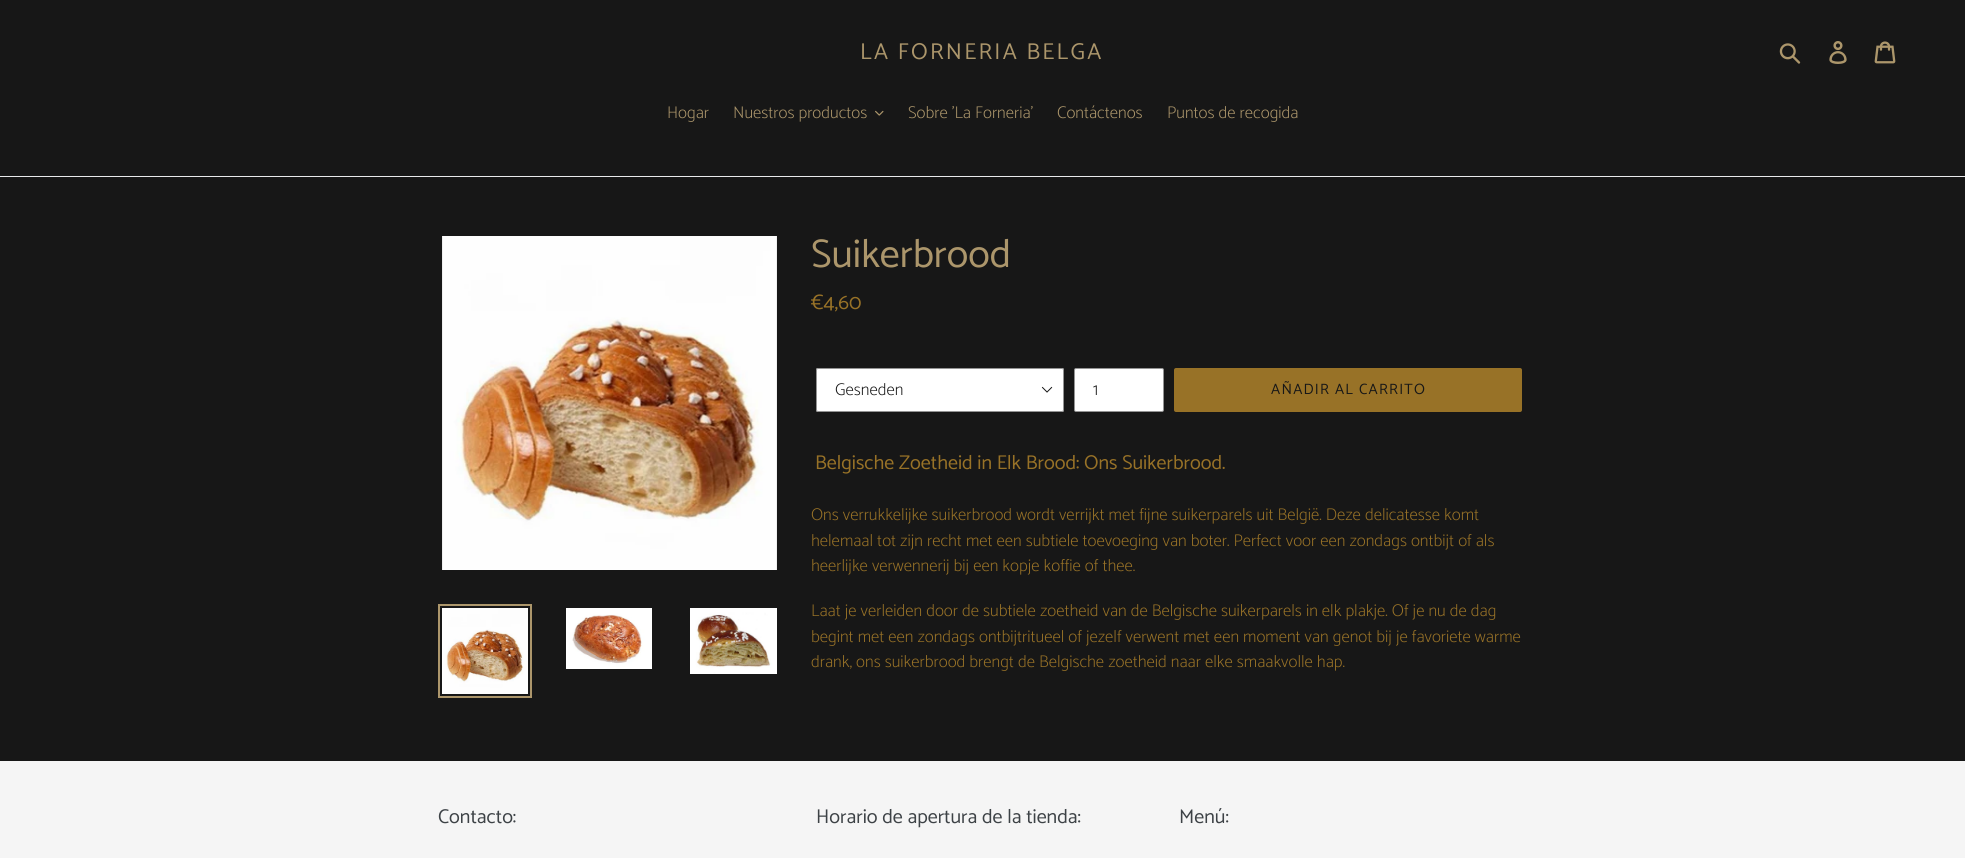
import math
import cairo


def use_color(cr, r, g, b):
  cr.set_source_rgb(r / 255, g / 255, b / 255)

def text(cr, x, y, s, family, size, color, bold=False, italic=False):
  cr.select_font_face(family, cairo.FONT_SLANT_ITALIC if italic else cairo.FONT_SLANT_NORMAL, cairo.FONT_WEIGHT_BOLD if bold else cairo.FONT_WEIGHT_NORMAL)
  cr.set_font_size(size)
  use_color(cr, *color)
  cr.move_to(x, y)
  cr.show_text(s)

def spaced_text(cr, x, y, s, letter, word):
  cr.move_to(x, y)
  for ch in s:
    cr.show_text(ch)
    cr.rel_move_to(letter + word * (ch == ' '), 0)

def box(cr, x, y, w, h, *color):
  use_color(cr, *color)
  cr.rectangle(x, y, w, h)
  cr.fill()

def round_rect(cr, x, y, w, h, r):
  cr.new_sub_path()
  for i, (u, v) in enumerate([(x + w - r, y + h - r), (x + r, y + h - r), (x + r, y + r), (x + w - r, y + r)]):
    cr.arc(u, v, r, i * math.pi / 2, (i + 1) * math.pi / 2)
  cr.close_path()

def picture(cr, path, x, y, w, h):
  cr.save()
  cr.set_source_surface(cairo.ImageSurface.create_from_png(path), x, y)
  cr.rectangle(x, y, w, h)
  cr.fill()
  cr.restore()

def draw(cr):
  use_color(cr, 23, 23, 23)
  cr.paint()
  picture(cr, "img_01.png", 1779, 43, 22, 21)
  picture(cr, "img_02.png", 1829, 41, 18, 23)
  picture(cr, "img_03.png", 1874, 41, 22, 23)
  box(cr, 0, 176, 1965, 1, 232, 233, 235)
  picture(cr, "img_04.png", 875, 110, 9, 6)
  picture(cr, "img_05.png", 442, 236, 335, 334)
  cr.rectangle(439, 605, 92, 92)
  use_color(cr, 172, 150, 107)
  cr.stroke()
  picture(cr, "img_06.png", 442, 608, 86, 86)
  picture(cr, "img_07.png", 566, 608, 86, 61)
  picture(cr, "img_08.png", 690, 608, 87, 66)
  use_color(cr, 255, 255, 255)
  round_rect(cr, 816, 368, 248, 44, 2)
  cr.fill()
  picture(cr, "img_09.png", 1041, 386, 12, 7)
  round_rect(cr, 816.5, 368.5, 247, 43, 1.5)
  use_color(cr, 148, 148, 148)
  cr.set_line_width(1)
  cr.stroke()
  use_color(cr, 255, 255, 255)
  round_rect(cr, 1074.5, 368.5, 89, 43, 1.5)
  cr.fill_preserve()
  use_color(cr, 148, 148, 148)
  cr.stroke()
  use_color(cr, 152, 114, 39)
  round_rect(cr, 1174, 368, 348, 44, 2)
  cr.fill()
  box(cr, 0, 761, 1965, 97, 245, 245, 245)
  cr.select_font_face("Catamaran")
  cr.set_font_size(23)
  use_color(cr, 172, 150, 107)
  spaced_text(cr, 860, 59, "LA FORNERIA BELGA", 2.25, 0)
  text(cr, 667, 118, "Hogar", "Catamaran ExtraLight", 17, (172, 150, 107))
  text(cr, 733, 118, "Nuestros productos", "Catamaran ExtraLight", 17, (172, 150, 107))
  text(cr, 908, 118, "Sobre 'La Forneria'", "Catamaran ExtraLight", 17, (172, 150, 107))
  text(cr, 1057, 118, "Contáctenos", "Catamaran ExtraLight", 17, (172, 150, 107))
  text(cr, 1167, 118, "Puntos de recogida", "Catamaran ExtraLight", 17, (172, 150, 107))
  text(cr, 811, 267, "Suikerbrood", "Catamaran", 40, (172, 150, 107))
  text(cr, 811, 309, "€4,60", "Catamaran", 21, (152, 114, 39))
  text(cr, 835, 395, "Gesneden", "Catamaran ExtraLight", 17, (23, 23, 23))
  text(cr, 1093, 395, "1", "Catamaran ExtraLight", 17, (23, 23, 23))
  cr.select_font_face("Catamaran")
  cr.set_font_size(15)
  spaced_text(cr, 1271, 394, "AÑADIR AL CARRITO", 1.25, 0)
  text(cr, 815, 469, "Belgische Zoetheid in Elk Brood: Ons Suikerbrood.", "Catamaran", 20, (152, 114, 39))
  text(cr, 811, 520, "Ons verrukkelijke suikerbrood wordt verrijkt met fijne suikerparels uit België. Deze delicatesse komt", "Catamaran ExtraLight", 17, (152, 114, 39))
  text(cr, 811, 546, "helemaal tot zijn recht met een subtiele toevoeging van boter. Perfect voor een zondags ontbijt of als", "Catamaran ExtraLight", 17, (152, 114, 39))
  text(cr, 811, 571, "heerlijke verwennerij bij een kopje koffie of thee.", "Catamaran ExtraLight", 17, (152, 114, 39))
  text(cr, 811, 616, "Laat je verleiden door de subtiele zoetheid van de Belgische suikerparels in elk plakje. Of je nu de dag", "Catamaran ExtraLight", 17, (152, 114, 39))
  text(cr, 811, 642, "begint met een zondags ontbijtritueel of jezelf verwent met een moment van genot bij je favoriete warme", "Catamaran ExtraLight", 17, (152, 114, 39))
  text(cr, 811, 667, "drank, ons suikerbrood brengt de Belgische zoetheid naar elke smaakvolle hap.", "Catamaran ExtraLight", 17, (152, 114, 39))
  text(cr, 438, 823, "Contacto:", "Catamaran", 20, (61, 66, 70))
  text(cr, 816, 823, "Horario de apertura de la tienda:", "Catamaran", 20, (61, 66, 70))
  text(cr, 1179, 823, "Menú:", "Catamaran", 20, (61, 66, 70))


surface = cairo.ImageSurface(cairo.FORMAT_RGB24, 1965, 858)
cr = cairo.Context(surface)
options = cairo.FontOptions()
options.set_hint_metrics(cairo.HINT_METRICS_OFF)
options.set_hint_style(cairo.HINT_STYLE_NONE)
cr.set_font_options(options)
cr.set_miter_limit(4)
draw(cr)
surface.write_to_png("out.png")
